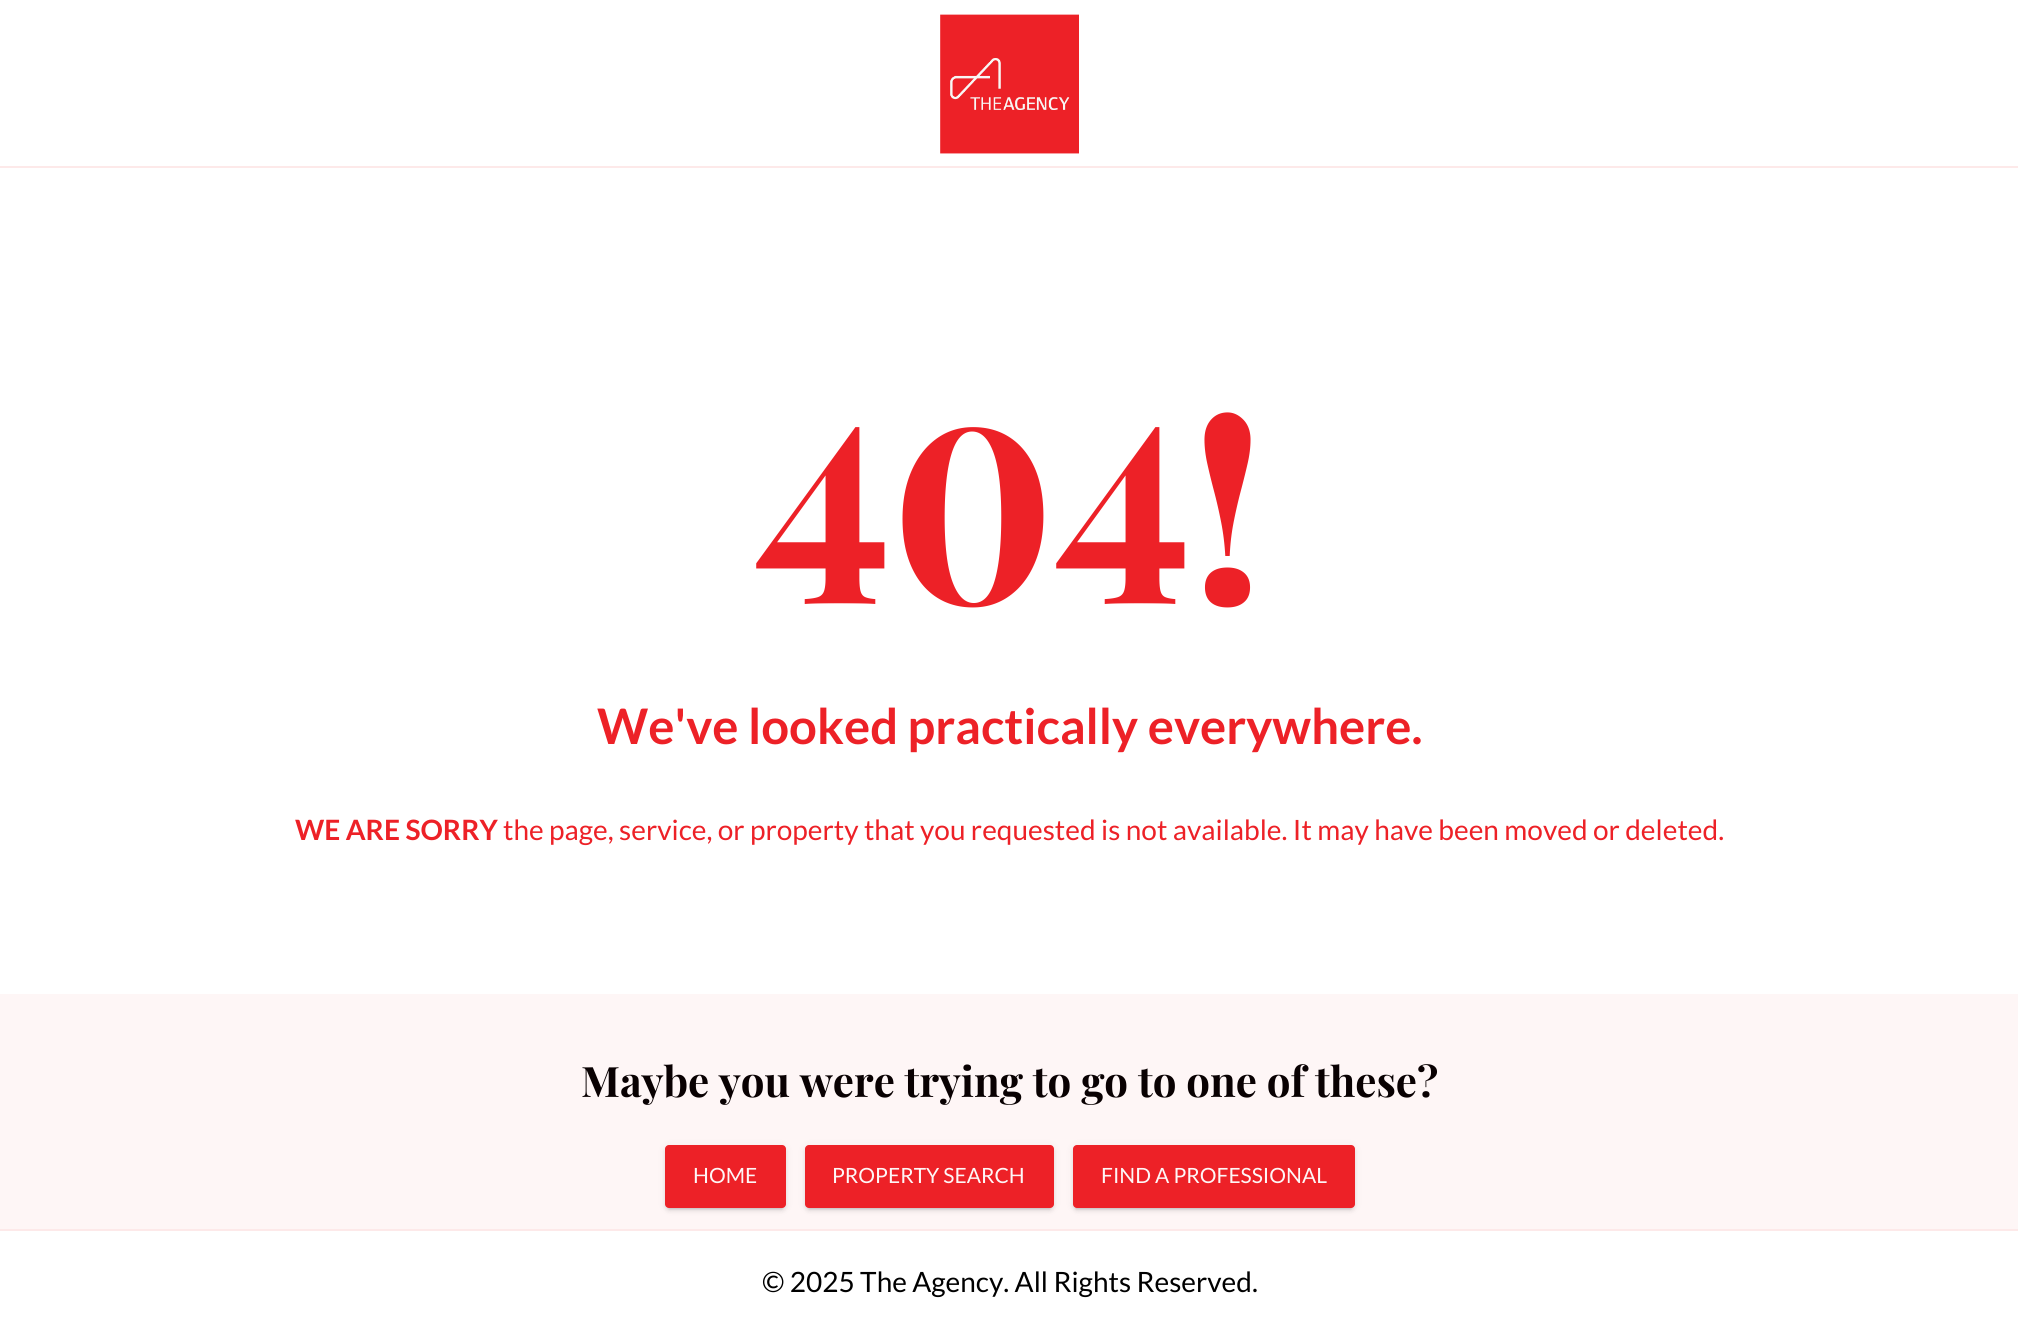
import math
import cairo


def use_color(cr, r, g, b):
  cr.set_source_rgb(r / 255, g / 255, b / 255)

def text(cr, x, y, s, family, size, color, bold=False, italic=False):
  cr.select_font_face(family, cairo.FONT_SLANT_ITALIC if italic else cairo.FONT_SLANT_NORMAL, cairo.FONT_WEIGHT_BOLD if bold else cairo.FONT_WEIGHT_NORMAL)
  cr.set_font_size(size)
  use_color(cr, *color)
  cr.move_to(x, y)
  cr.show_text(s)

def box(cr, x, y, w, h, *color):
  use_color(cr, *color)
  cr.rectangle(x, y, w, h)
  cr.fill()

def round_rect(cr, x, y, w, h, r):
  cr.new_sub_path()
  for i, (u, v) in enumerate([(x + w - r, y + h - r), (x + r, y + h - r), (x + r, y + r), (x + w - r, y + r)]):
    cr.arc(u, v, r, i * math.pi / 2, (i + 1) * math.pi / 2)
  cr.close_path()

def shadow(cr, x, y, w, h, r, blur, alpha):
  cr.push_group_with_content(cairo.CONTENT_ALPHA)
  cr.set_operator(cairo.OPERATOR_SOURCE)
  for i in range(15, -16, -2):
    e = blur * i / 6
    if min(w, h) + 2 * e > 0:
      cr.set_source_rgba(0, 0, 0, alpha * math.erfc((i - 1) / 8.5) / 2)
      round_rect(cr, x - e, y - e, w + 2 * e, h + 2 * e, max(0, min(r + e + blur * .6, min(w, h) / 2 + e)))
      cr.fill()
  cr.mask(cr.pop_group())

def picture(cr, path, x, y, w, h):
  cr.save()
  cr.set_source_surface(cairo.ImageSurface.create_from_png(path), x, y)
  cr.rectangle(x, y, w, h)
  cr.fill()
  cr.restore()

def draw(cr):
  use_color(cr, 255, 255, 255)
  cr.paint()
  box(cr, 0, 994, 2018, 235, 254, 246, 246)
  picture(cr, "img_01.png", 940, 14, 139, 140)
  box(cr, 0, 166, 2018, 2, 253, 233, 233)
  use_color(cr, 0, 0, 0)
  shadow(cr, 665, 1146, 121, 63, 4, 4.5, 0.06)
  shadow(cr, 669, 1153, 113, 56, 0, 1, 0.14)
  shadow(cr, 665, 1148, 121, 63, 4, 2, 0.08)
  use_color(cr, 237, 33, 39)
  round_rect(cr, 665, 1145, 121, 63, 4)
  cr.fill()
  use_color(cr, 0, 0, 0)
  shadow(cr, 805, 1146, 249, 63, 4, 4.5, 0.06)
  shadow(cr, 809, 1153, 241, 56, 0, 1, 0.14)
  shadow(cr, 805, 1148, 249, 63, 4, 2, 0.08)
  use_color(cr, 237, 33, 39)
  round_rect(cr, 805, 1145, 249, 63, 4)
  cr.fill()
  use_color(cr, 0, 0, 0)
  shadow(cr, 1073, 1146, 282, 63, 4, 4.5, 0.06)
  shadow(cr, 1076, 1153, 275, 56, 0, 1, 0.14)
  shadow(cr, 1073, 1148, 282, 63, 4, 2, 0.08)
  use_color(cr, 237, 33, 39)
  round_rect(cr, 1073, 1145, 282, 63, 4)
  cr.fill()
  box(cr, 0, 1229, 2018, 2, 253, 233, 233)
  text(cr, 755, 604, "404!", "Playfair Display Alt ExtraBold", 245, (237, 33, 39))
  text(cr, 597, 744, "We've looked practically everywhere.", "Lato", 49, (237, 33, 39), bold=True)
  text(cr, 295, 840, "WE ARE SORRY", "Lato", 28, (237, 33, 39), bold=True)
  text(cr, 503, 840, "the page, service, or property that you requested is not available. It may have been moved or deleted.", "Lato", 28, (237, 33, 39))
  text(cr, 581, 1097, "Maybe you were trying to go to one of these?", "Playfair Display", 42, (9, 1, 2), bold=True)
  text(cr, 693, 1183, "HOME", "Lato", 21, (254, 246, 246))
  text(cr, 832, 1183, "PROPERTY SEARCH", "Lato", 21, (254, 246, 246))
  text(cr, 1101, 1183, "FIND A PROFESSIONAL", "Lato", 21, (254, 246, 246))
  text(cr, 762, 1292, "© 2025 The Agency. All Rights Reserved.", "Lato", 28, (0, 0, 0))


surface = cairo.ImageSurface(cairo.FORMAT_RGB24, 2018, 1339)
cr = cairo.Context(surface)
options = cairo.FontOptions()
options.set_hint_metrics(cairo.HINT_METRICS_OFF)
options.set_hint_style(cairo.HINT_STYLE_NONE)
cr.set_font_options(options)
cr.set_miter_limit(4)
draw(cr)
surface.write_to_png("out.png")
